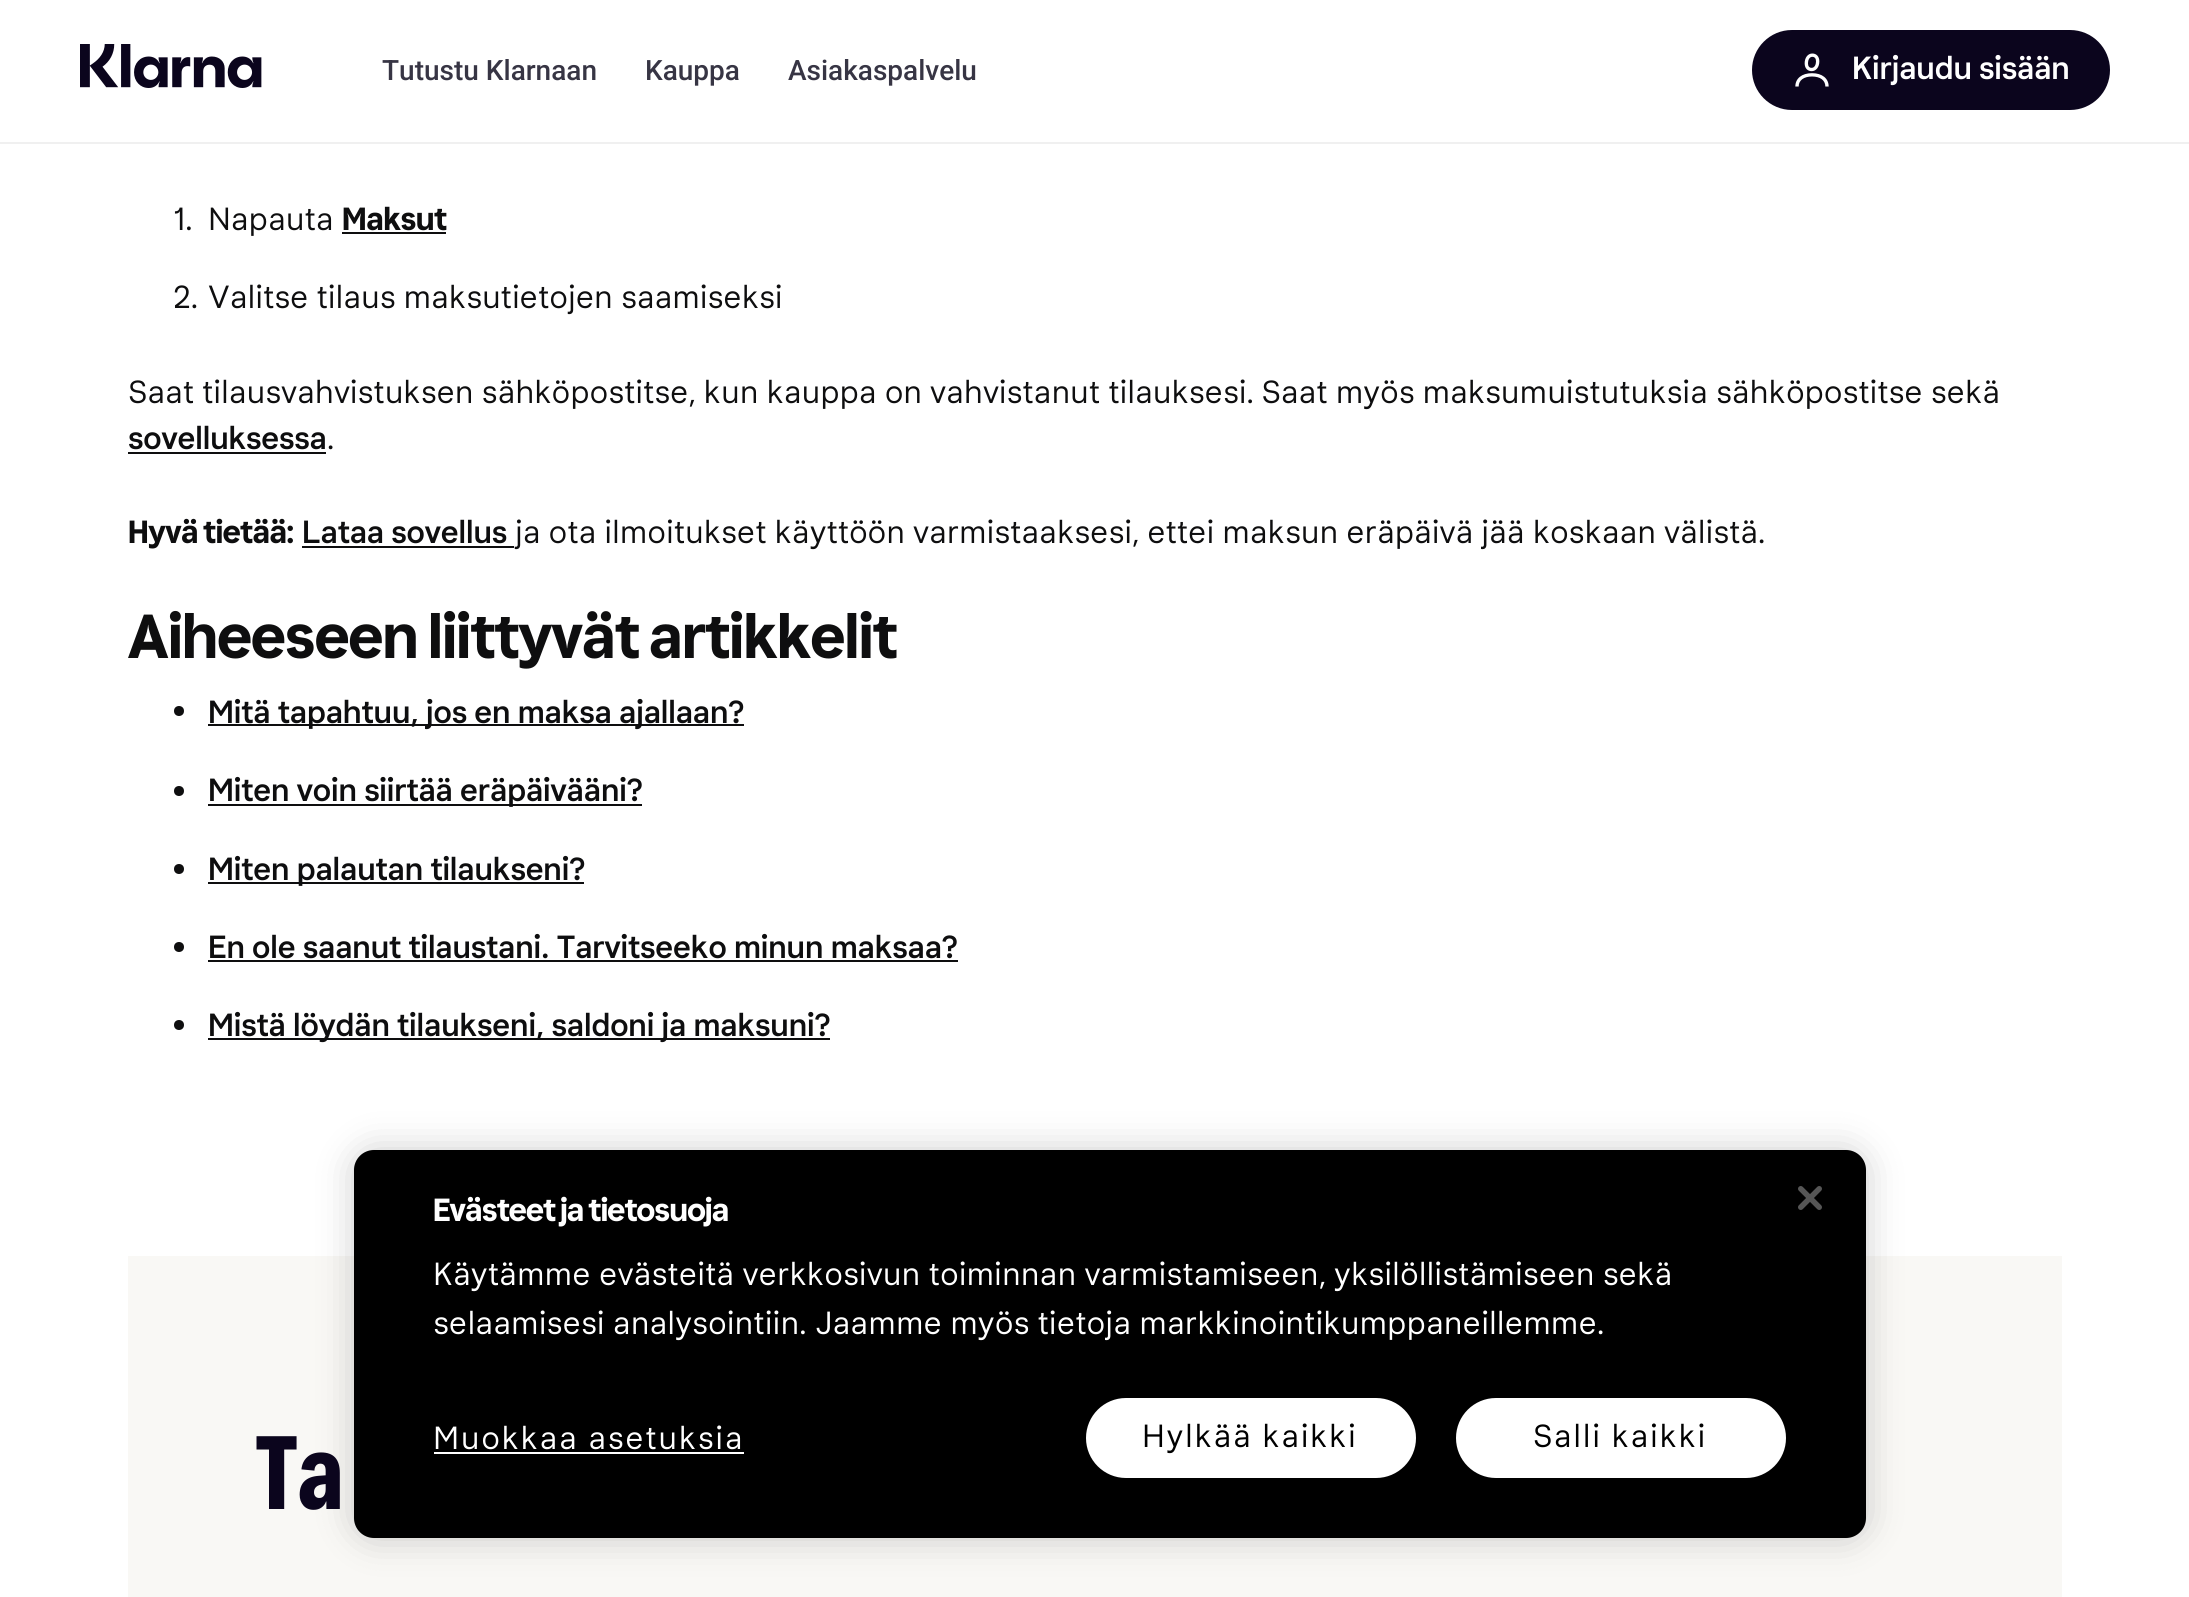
import math
import cairo


def use_color(cr, r, g, b):
  cr.set_source_rgb(r / 255, g / 255, b / 255)

def text(cr, x, y, s, family, size, color, bold=False, italic=False):
  cr.select_font_face(family, cairo.FONT_SLANT_ITALIC if italic else cairo.FONT_SLANT_NORMAL, cairo.FONT_WEIGHT_BOLD if bold else cairo.FONT_WEIGHT_NORMAL)
  cr.set_font_size(size)
  use_color(cr, *color)
  cr.move_to(x, y)
  cr.show_text(s)

def spaced_text(cr, x, y, s, letter, word):
  cr.move_to(x, y)
  for ch in s:
    cr.show_text(ch)
    cr.rel_move_to(letter + word * (ch == ' '), 0)

def box(cr, x, y, w, h, *color):
  use_color(cr, *color)
  cr.rectangle(x, y, w, h)
  cr.fill()

def round_rect(cr, x, y, w, h, r):
  cr.new_sub_path()
  for i, (u, v) in enumerate([(x + w - r, y + h - r), (x + r, y + h - r), (x + r, y + r), (x + w - r, y + r)]):
    cr.arc(u, v, r, i * math.pi / 2, (i + 1) * math.pi / 2)
  cr.close_path()

def shadow(cr, x, y, w, h, r, blur, alpha):
  cr.push_group_with_content(cairo.CONTENT_ALPHA)
  cr.set_operator(cairo.OPERATOR_SOURCE)
  for i in range(15, -16, -2):
    e = blur * i / 6
    if min(w, h) + 2 * e > 0:
      cr.set_source_rgba(0, 0, 0, alpha * math.erfc((i - 1) / 8.5) / 2)
      round_rect(cr, x - e, y - e, w + 2 * e, h + 2 * e, max(0, min(r + e + blur * .6, min(w, h) / 2 + e)))
      cr.fill()
  cr.mask(cr.pop_group())

def picture(cr, path, x, y, w, h):
  cr.save()
  cr.set_source_surface(cairo.ImageSurface.create_from_png(path), x, y)
  cr.rectangle(x, y, w, h)
  cr.fill()
  cr.restore()

def draw(cr):
  use_color(cr, 255, 255, 255)
  cr.paint()
  box(cr, 0, 142, 2189, 2, 240, 240, 240)
  picture(cr, "img_01.png", 80, 44, 182, 44)
  use_color(cr, 11, 5, 29)
  round_rect(cr, 1752, 30, 358, 80, 40)
  cr.fill()
  picture(cr, "img_02.png", 1795, 53, 34, 34)
  box(cr, 342, 232, 104, 2, 14, 14, 15)
  box(cr, 128, 452, 198, 2, 14, 14, 15)
  box(cr, 302, 546, 212, 2, 14, 14, 15)
  cr.arc(179, 711, 5, 0, 2 * math.pi)
  cr.fill()
  box(cr, 208, 724, 536, 2, 14, 14, 15)
  cr.arc(179, 791, 5, 0, 2 * math.pi)
  cr.fill()
  box(cr, 208, 804, 434, 2, 14, 14, 15)
  cr.arc(179, 869, 5, 0, 2 * math.pi)
  cr.fill()
  box(cr, 208, 882, 376, 2, 14, 14, 15)
  cr.arc(179, 947, 5, 0, 2 * math.pi)
  cr.fill()
  box(cr, 208, 960, 750, 2, 14, 14, 15)
  cr.arc(179, 1025, 5, 0, 2 * math.pi)
  cr.fill()
  box(cr, 208, 1038, 622, 2, 14, 14, 15)
  box(cr, 128, 1256, 1934, 341, 249, 248, 245)
  use_color(cr, 0, 0, 0)
  shadow(cr, 354, 1150, 1512, 388, 20, 18, 0.2)
  use_color(cr, 0, 0, 0)
  round_rect(cr, 354, 1150, 1512, 388, 20)
  cr.fill()
  picture(cr, "img_03.png", 1798, 1186, 24, 24)
  box(cr, 434, 1452, 310, 2, 255, 255, 255)
  round_rect(cr, 1087, 1399, 328, 78, 39)
  cr.fill_preserve()
  cr.stroke()
  round_rect(cr, 1457, 1399, 328, 78, 39)
  cr.fill_preserve()
  cr.stroke()
  text(cr, 382, 80, "Tutustu Klarnaan", "Roboto Medium", 28, (55, 53, 68))
  text(cr, 645, 80, "Kauppa", "Roboto Medium", 28, (55, 53, 68))
  text(cr, 788, 80, "Asiakaspalvelu", "Roboto Medium", 28, (55, 53, 68))
  cr.select_font_face("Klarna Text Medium")
  cr.set_font_size(32)
  use_color(cr, 255, 255, 255)
  spaced_text(cr, 1852, 79, "Kirjaudu sisään", -0.1, 0)
  text(cr, 173, 230, "1.", "Klarna Text", 32, (14, 14, 15))
  spaced_text(cr, 208, 230, "Napauta", -0.1, 0)
  cr.select_font_face("Klarna Text", cairo.FONT_SLANT_NORMAL, cairo.FONT_WEIGHT_BOLD)
  spaced_text(cr, 342, 230, "Maksut", -0.1, 0)
  text(cr, 173, 308, "2.", "Klarna Text", 32, (14, 14, 15))
  spaced_text(cr, 208, 308, "Valitse tilaus maksutietojen saamiseksi", -0.1, 0)
  spaced_text(cr, 128, 403, "Saat tilausvahvistuksen sähköpostitse, kun kauppa on vahvistanut tilauksesi. Saat myös maksumuistutuksia sähköpostitse sekä", -0.1, 0)
  cr.select_font_face("Klarna Text Medium")
  spaced_text(cr, 128, 449, "sovelluksessa", -0.1, 0)
  cr.select_font_face("Klarna Text")
  spaced_text(cr, 327, 449, ".", -0.1, 0)
  cr.select_font_face("Klarna Text", cairo.FONT_SLANT_NORMAL, cairo.FONT_WEIGHT_BOLD)
  spaced_text(cr, 128, 543, "Hyvä tietää:", -0.1, 0)
  cr.select_font_face("Klarna Text Medium")
  spaced_text(cr, 302, 543, "Lataa sovellus", -0.1, 0)
  cr.select_font_face("Klarna Text")
  spaced_text(cr, 515, 543, "ja ota ilmoitukset käyttöön varmistaaksesi, ettei maksun eräpäivä jää koskaan välistä.", -0.1, 0)
  cr.select_font_face("Klarna Text", cairo.FONT_SLANT_NORMAL, cairo.FONT_WEIGHT_BOLD)
  cr.set_font_size(62)
  spaced_text(cr, 128, 658, "Aiheeseen liittyvät artikkelit", -0.1, 0)
  cr.select_font_face("Klarna Text Medium")
  cr.set_font_size(32)
  spaced_text(cr, 208, 723, "Mitä tapahtuu, jos en maksa ajallaan?", -0.1, 0)
  spaced_text(cr, 208, 801, "Miten voin siirtää eräpäivääni?", -0.1, 0)
  spaced_text(cr, 208, 880, "Miten palautan tilaukseni?", -0.1, 0)
  spaced_text(cr, 208, 958, "En ole saanut tilaustani. Tarvitseeko minun maksaa?", -0.1, 0)
  spaced_text(cr, 208, 1036, "Mistä löydän tilaukseni, saldoni ja maksuni?", -0.1, 0)
  cr.select_font_face("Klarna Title", cairo.FONT_SLANT_NORMAL, cairo.FONT_WEIGHT_BOLD)
  cr.set_font_size(104)
  use_color(cr, 11, 5, 29)
  spaced_text(cr, 256, 1509, "Ta", 1, 0)
  cr.select_font_face("Klarna Text", cairo.FONT_SLANT_NORMAL, cairo.FONT_WEIGHT_BOLD)
  cr.set_font_size(32)
  use_color(cr, 255, 255, 255)
  spaced_text(cr, 433, 1221, "Evästeet ja tietosuoja", -0.4, 0)
  text(cr, 433, 1285, "Käytämme evästeitä verkkosivun toiminnan varmistamiseen, yksilöllistämiseen sekä", "Klarna Text", 32, (255, 255, 255))
  text(cr, 433, 1334, "selaamisesi analysointiin. Jaamme myös tietoja markkinointikumppaneillemme.", "Klarna Text", 32, (255, 255, 255))
  spaced_text(cr, 433, 1449, "Muokkaa asetuksia", 1.6, 0)
  use_color(cr, 0, 0, 0)
  spaced_text(cr, 1142, 1447, "Hylkää kaikki", 1.6, 0)
  spaced_text(cr, 1533, 1447, "Salli kaikki", 1.6, 0)


surface = cairo.ImageSurface(cairo.FORMAT_RGB24, 2189, 1597)
cr = cairo.Context(surface)
options = cairo.FontOptions()
options.set_hint_metrics(cairo.HINT_METRICS_OFF)
options.set_hint_style(cairo.HINT_STYLE_NONE)
cr.set_font_options(options)
cr.set_miter_limit(4)
draw(cr)
surface.write_to_png("out.png")
